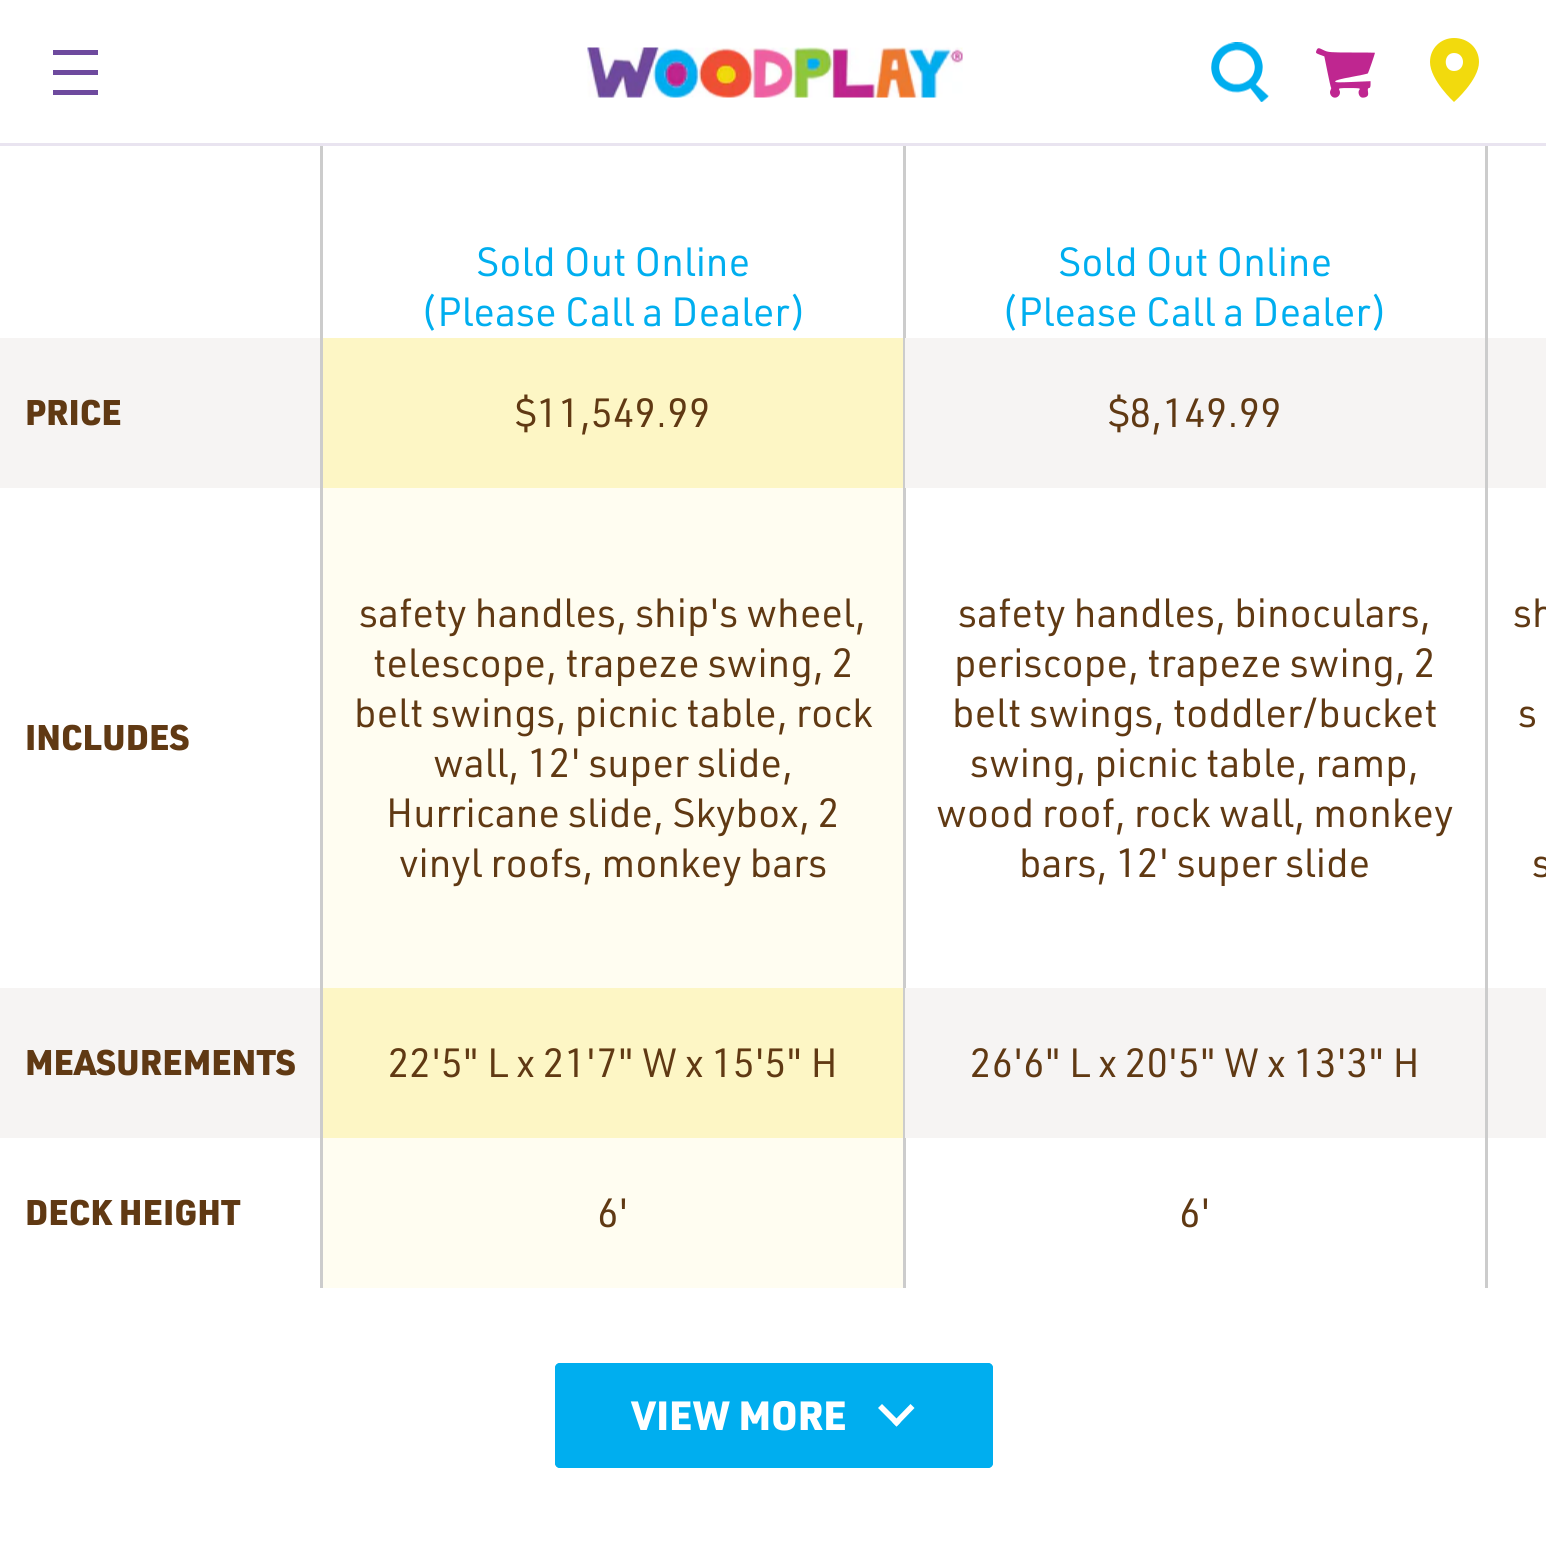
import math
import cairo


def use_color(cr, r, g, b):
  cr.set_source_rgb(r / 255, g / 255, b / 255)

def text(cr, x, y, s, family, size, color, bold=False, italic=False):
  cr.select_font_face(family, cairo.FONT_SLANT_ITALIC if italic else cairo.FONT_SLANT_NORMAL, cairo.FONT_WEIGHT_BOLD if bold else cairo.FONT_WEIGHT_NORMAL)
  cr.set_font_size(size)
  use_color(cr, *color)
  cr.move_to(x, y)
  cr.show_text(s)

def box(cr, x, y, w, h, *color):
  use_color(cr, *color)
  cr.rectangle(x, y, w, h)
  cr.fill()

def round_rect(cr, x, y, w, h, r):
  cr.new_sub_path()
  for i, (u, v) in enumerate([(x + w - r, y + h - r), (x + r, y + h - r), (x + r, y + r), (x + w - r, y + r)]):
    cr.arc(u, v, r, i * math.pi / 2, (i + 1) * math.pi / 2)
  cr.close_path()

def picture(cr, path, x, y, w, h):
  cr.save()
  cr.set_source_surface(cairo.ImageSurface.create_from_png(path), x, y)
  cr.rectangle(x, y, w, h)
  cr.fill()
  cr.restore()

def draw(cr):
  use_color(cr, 255, 255, 255)
  cr.paint()
  box(cr, 0, 143, 1546, 3, 233, 228, 240)
  box(cr, 53, 50, 45, 5, 110, 74, 158)
  box(cr, 53, 70, 45, 5, 110, 74, 158)
  box(cr, 53, 90, 45, 5, 110, 74, 158)
  picture(cr, "img_01.png", 587, 47, 376, 51)
  picture(cr, "img_02.png", 1211, 42, 58, 60)
  picture(cr, "img_03.png", 1316, 48, 59, 50)
  use_color(cr, 242, 218, 13)
  cr.new_path()
  cr.move_to(1454, 38)
  cr.curve_to(1441, 38, 1430, 48, 1430, 62)
  cr.curve_to(1430, 80, 1454, 102, 1454, 102)
  cr.curve_to(1454, 102, 1479, 80, 1479, 62)
  cr.curve_to(1479, 48, 1468, 38, 1454, 38)
  cr.close_path()
  cr.move_to(1454, 71)
  cr.curve_to(1443, 71, 1443, 53, 1454, 53)
  cr.curve_to(1466, 53, 1466, 71, 1454, 71)
  cr.close_path()
  cr.fill()
  box(cr, 320, 146, 3, 1142, 204, 204, 204)
  box(cr, 0, 338, 320, 150, 246, 244, 243)
  box(cr, 0, 988, 320, 150, 246, 244, 243)
  box(cr, 903, 146, 3, 1142, 204, 204, 204)
  box(cr, 323, 338, 580, 150, 253, 246, 197)
  box(cr, 323, 488, 580, 500, 255, 253, 241)
  box(cr, 323, 988, 580, 150, 253, 246, 197)
  box(cr, 323, 1138, 580, 150, 255, 253, 241)
  box(cr, 1485, 146, 3, 1142, 204, 204, 204)
  box(cr, 905, 338, 580, 150, 246, 244, 243)
  box(cr, 905, 988, 580, 150, 246, 244, 243)
  box(cr, 1488, 338, 58, 150, 246, 244, 243)
  box(cr, 1488, 988, 58, 150, 246, 244, 243)
  round_rect(cr, 556.5, 1364.5, 435, 102, 3.5)
  use_color(cr, 0, 174, 239)
  cr.set_line_width(3)
  cr.stroke()
  round_rect(cr, 555, 1363, 438, 105, 5)
  cr.fill()
  use_color(cr, 255, 255, 255)
  cr.set_fill_rule(cairo.FILL_RULE_EVEN_ODD)
  cr.new_path()
  cr.move_to(900.5, 1422.5)
  cr.line_to(896.5, 1426.5)
  cr.line_to(878, 1408)
  cr.line_to(882, 1404)
  cr.close_path()
  cr.fill()
  cr.new_path()
  cr.move_to(910.5, 1404)
  cr.line_to(914.5, 1408)
  cr.line_to(896.5, 1426.5)
  cr.line_to(892.5, 1422.5)
  cr.close_path()
  cr.fill()
  text(cr, 25, 425, "PRICE", "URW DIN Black", 35, (96, 57, 19))
  text(cr, 25, 750, "INCLUDES", "URW DIN Black", 35, (96, 57, 19))
  text(cr, 25, 1075, "MEASUREMENTS", "URW DIN Black", 35, (96, 57, 19))
  text(cr, 25, 1225, "DECK HEIGHT", "URW DIN Black", 35, (96, 57, 19))
  text(cr, 476, 276, "Sold Out Online", "URW DIN", 40, (0, 174, 239))
  text(cr, 420, 326, "(Please Call a Dealer)", "URW DIN", 40, (0, 174, 239))
  text(cr, 515, 427, "$11,549.99", "URW DIN", 40, (96, 57, 19))
  text(cr, 359, 627, "safety handles, ship's wheel,", "URW DIN", 40, (96, 57, 19))
  text(cr, 373, 677, "telescope, trapeze swing, 2", "URW DIN", 40, (96, 57, 19))
  text(cr, 354, 727, "belt swings, picnic table, rock", "URW DIN", 40, (96, 57, 19))
  text(cr, 433, 777, "wall, 12' super slide,", "URW DIN", 40, (96, 57, 19))
  text(cr, 386, 827, "Hurricane slide, Skybox, 2", "URW DIN", 40, (96, 57, 19))
  text(cr, 399, 877, "vinyl roofs, monkey bars", "URW DIN", 40, (96, 57, 19))
  text(cr, 388, 1077, "22'5\" L x 21'7\" W x 15'5\" H", "URW DIN", 40, (96, 57, 19))
  text(cr, 597, 1227, "6'", "URW DIN", 40, (96, 57, 19))
  text(cr, 1058, 276, "Sold Out Online", "URW DIN", 40, (0, 174, 239))
  text(cr, 1001, 326, "(Please Call a Dealer)", "URW DIN", 40, (0, 174, 239))
  text(cr, 1108, 427, "$8,149.99", "URW DIN", 40, (96, 57, 19))
  text(cr, 958, 627, "safety handles, binoculars,", "URW DIN", 40, (96, 57, 19))
  text(cr, 954, 677, "periscope, trapeze swing, 2", "URW DIN", 40, (96, 57, 19))
  text(cr, 952, 727, "belt swings, toddler/bucket", "URW DIN", 40, (96, 57, 19))
  text(cr, 970, 777, "swing, picnic table, ramp,", "URW DIN", 40, (96, 57, 19))
  text(cr, 936, 827, "wood roof, rock wall, monkey", "URW DIN", 40, (96, 57, 19))
  text(cr, 1019, 877, "bars, 12' super slide", "URW DIN", 40, (96, 57, 19))
  text(cr, 970, 1077, "26'6\" L x 20'5\" W x 13'3\" H", "URW DIN", 40, (96, 57, 19))
  text(cr, 1179, 1227, "6'", "URW DIN", 40, (96, 57, 19))
  text(cr, 1513, 627, "sh", "URW DIN", 40, (96, 57, 19))
  text(cr, 1518, 727, "s", "URW DIN", 40, (96, 57, 19))
  text(cr, 1532, 877, "s", "URW DIN", 40, (96, 57, 19))
  text(cr, 631, 1430, "VIEW MORE", "URW DIN Black", 40, (255, 255, 255))


surface = cairo.ImageSurface(cairo.FORMAT_RGB24, 1546, 1544)
cr = cairo.Context(surface)
options = cairo.FontOptions()
options.set_hint_metrics(cairo.HINT_METRICS_OFF)
options.set_hint_style(cairo.HINT_STYLE_NONE)
cr.set_font_options(options)
cr.set_miter_limit(4)
draw(cr)
surface.write_to_png("out.png")
